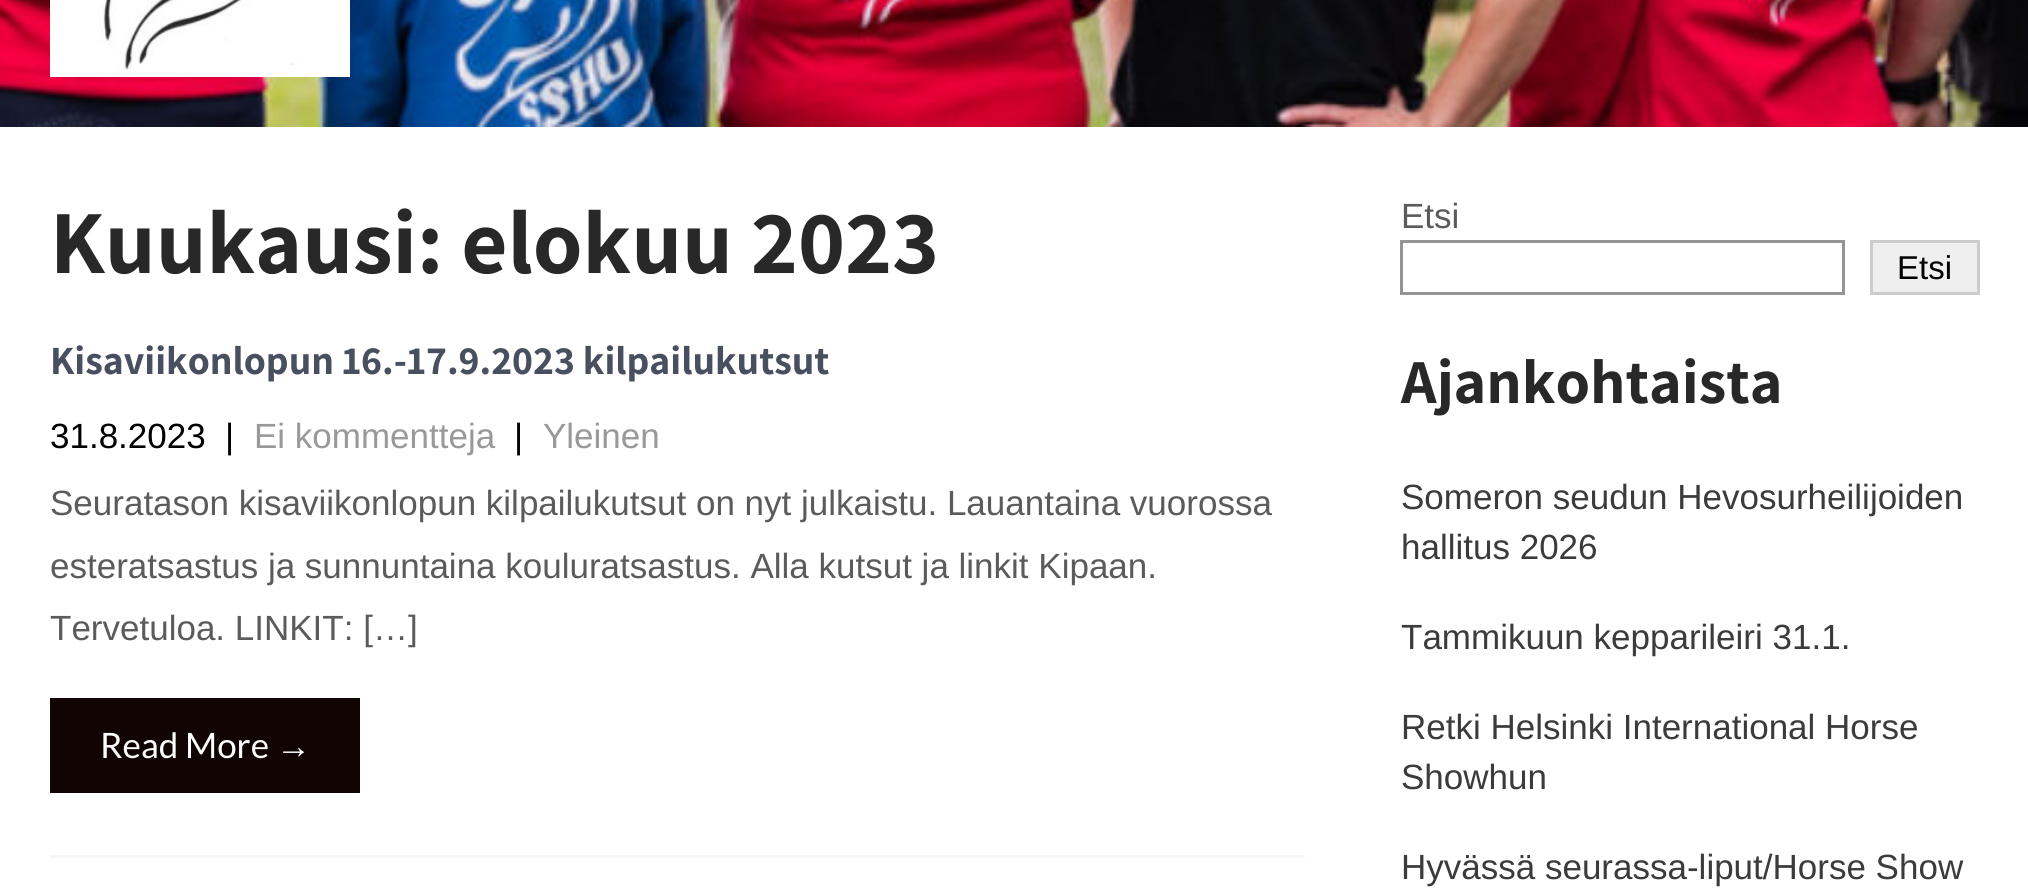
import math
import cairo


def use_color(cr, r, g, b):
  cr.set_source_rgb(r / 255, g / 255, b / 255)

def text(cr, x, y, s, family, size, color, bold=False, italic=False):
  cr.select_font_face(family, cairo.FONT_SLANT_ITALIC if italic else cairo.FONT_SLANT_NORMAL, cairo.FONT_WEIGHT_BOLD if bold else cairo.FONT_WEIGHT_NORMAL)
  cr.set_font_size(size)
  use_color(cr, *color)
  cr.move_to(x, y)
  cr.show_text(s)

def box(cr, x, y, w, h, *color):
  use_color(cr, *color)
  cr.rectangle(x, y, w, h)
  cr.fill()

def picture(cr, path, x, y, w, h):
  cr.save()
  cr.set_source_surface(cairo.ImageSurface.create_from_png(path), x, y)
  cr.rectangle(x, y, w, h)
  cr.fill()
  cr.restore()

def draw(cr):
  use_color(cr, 255, 255, 255)
  cr.paint()
  picture(cr, "img_01.png", 0, 0, 2028, 127)
  picture(cr, "img_02.png", 50, 0, 300, 77)
  box(cr, 50, 855, 1255, 3, 247, 247, 247)
  box(cr, 50, 698, 310, 95, 17, 5, 3)
  cr.rectangle(1401.5, 241.5, 442, 52)
  use_color(cr, 148, 148, 148)
  cr.set_line_width(3)
  cr.stroke()
  use_color(cr, 239, 239, 239)
  cr.rectangle(1871.5, 241.5, 107, 52)
  cr.fill_preserve()
  use_color(cr, 204, 204, 204)
  cr.stroke()
  text(cr, 50, 273, "Kuukausi: elokuu 2023", "Assistant", 90, (40, 40, 40), bold=True)
  text(cr, 50, 374, "Kisaviikonlopun 16.-17.9.2023 kilpailukutsut", "Assistant", 40, (72, 79, 94), bold=True)
  text(cr, 50, 448, "31.8.2023", "Liberation Sans", 35, (0, 0, 0))
  text(cr, 225, 448, "|", "Liberation Sans", 35, (0, 0, 0))
  text(cr, 254, 448, "Ei kommentteja", "Liberation Sans", 35, (153, 153, 153))
  text(cr, 514, 448, "|", "Liberation Sans", 35, (0, 0, 0))
  text(cr, 543, 448, "Yleinen", "Liberation Sans", 35, (153, 153, 153))
  text(cr, 50, 515, "Seuratason kisaviikonlopun kilpailukutsut on nyt julkaistu. Lauantaina vuorossa", "Liberation Sans", 35, (92, 91, 91))
  text(cr, 50, 578, "esteratsastus ja sunnuntaina kouluratsastus. Alla kutsut ja linkit Kipaan.", "Liberation Sans", 35, (92, 91, 91))
  text(cr, 50, 640, "Tervetuloa. LINKIT: […]", "Liberation Sans", 35, (92, 91, 91))
  text(cr, 100, 758, "Read More", "Lato", 35, (255, 255, 255))
  text(cr, 276, 758, "→", "Liberation Sans", 35, (255, 255, 255))
  text(cr, 1401, 228, "Etsi", "Liberation Sans", 35, (92, 91, 91))
  text(cr, 1897, 279, "Etsi", "Liberation Sans", 33, (0, 0, 0))
  text(cr, 1401, 403, "Ajankohtaista", "Assistant", 62.5, (40, 40, 40), bold=True)
  text(cr, 1401, 509, "Someron seudun Hevosurheilijoiden", "Liberation Sans", 35, (59, 59, 59))
  text(cr, 1401, 559, "hallitus 2026", "Liberation Sans", 35, (59, 59, 59))
  text(cr, 1401, 649, "Tammikuun kepparileiri 31.1.", "Liberation Sans", 35, (59, 59, 59))
  text(cr, 1401, 739, "Retki Helsinki International Horse", "Liberation Sans", 35, (59, 59, 59))
  text(cr, 1401, 789, "Showhun", "Liberation Sans", 35, (59, 59, 59))
  text(cr, 1401, 879, "Hyvässä seurassa-liput/Horse Show", "Liberation Sans", 35, (59, 59, 59))


surface = cairo.ImageSurface(cairo.FORMAT_RGB24, 2028, 894)
cr = cairo.Context(surface)
options = cairo.FontOptions()
options.set_hint_metrics(cairo.HINT_METRICS_OFF)
options.set_hint_style(cairo.HINT_STYLE_NONE)
cr.set_font_options(options)
cr.set_miter_limit(4)
draw(cr)
surface.write_to_png("out.png")
